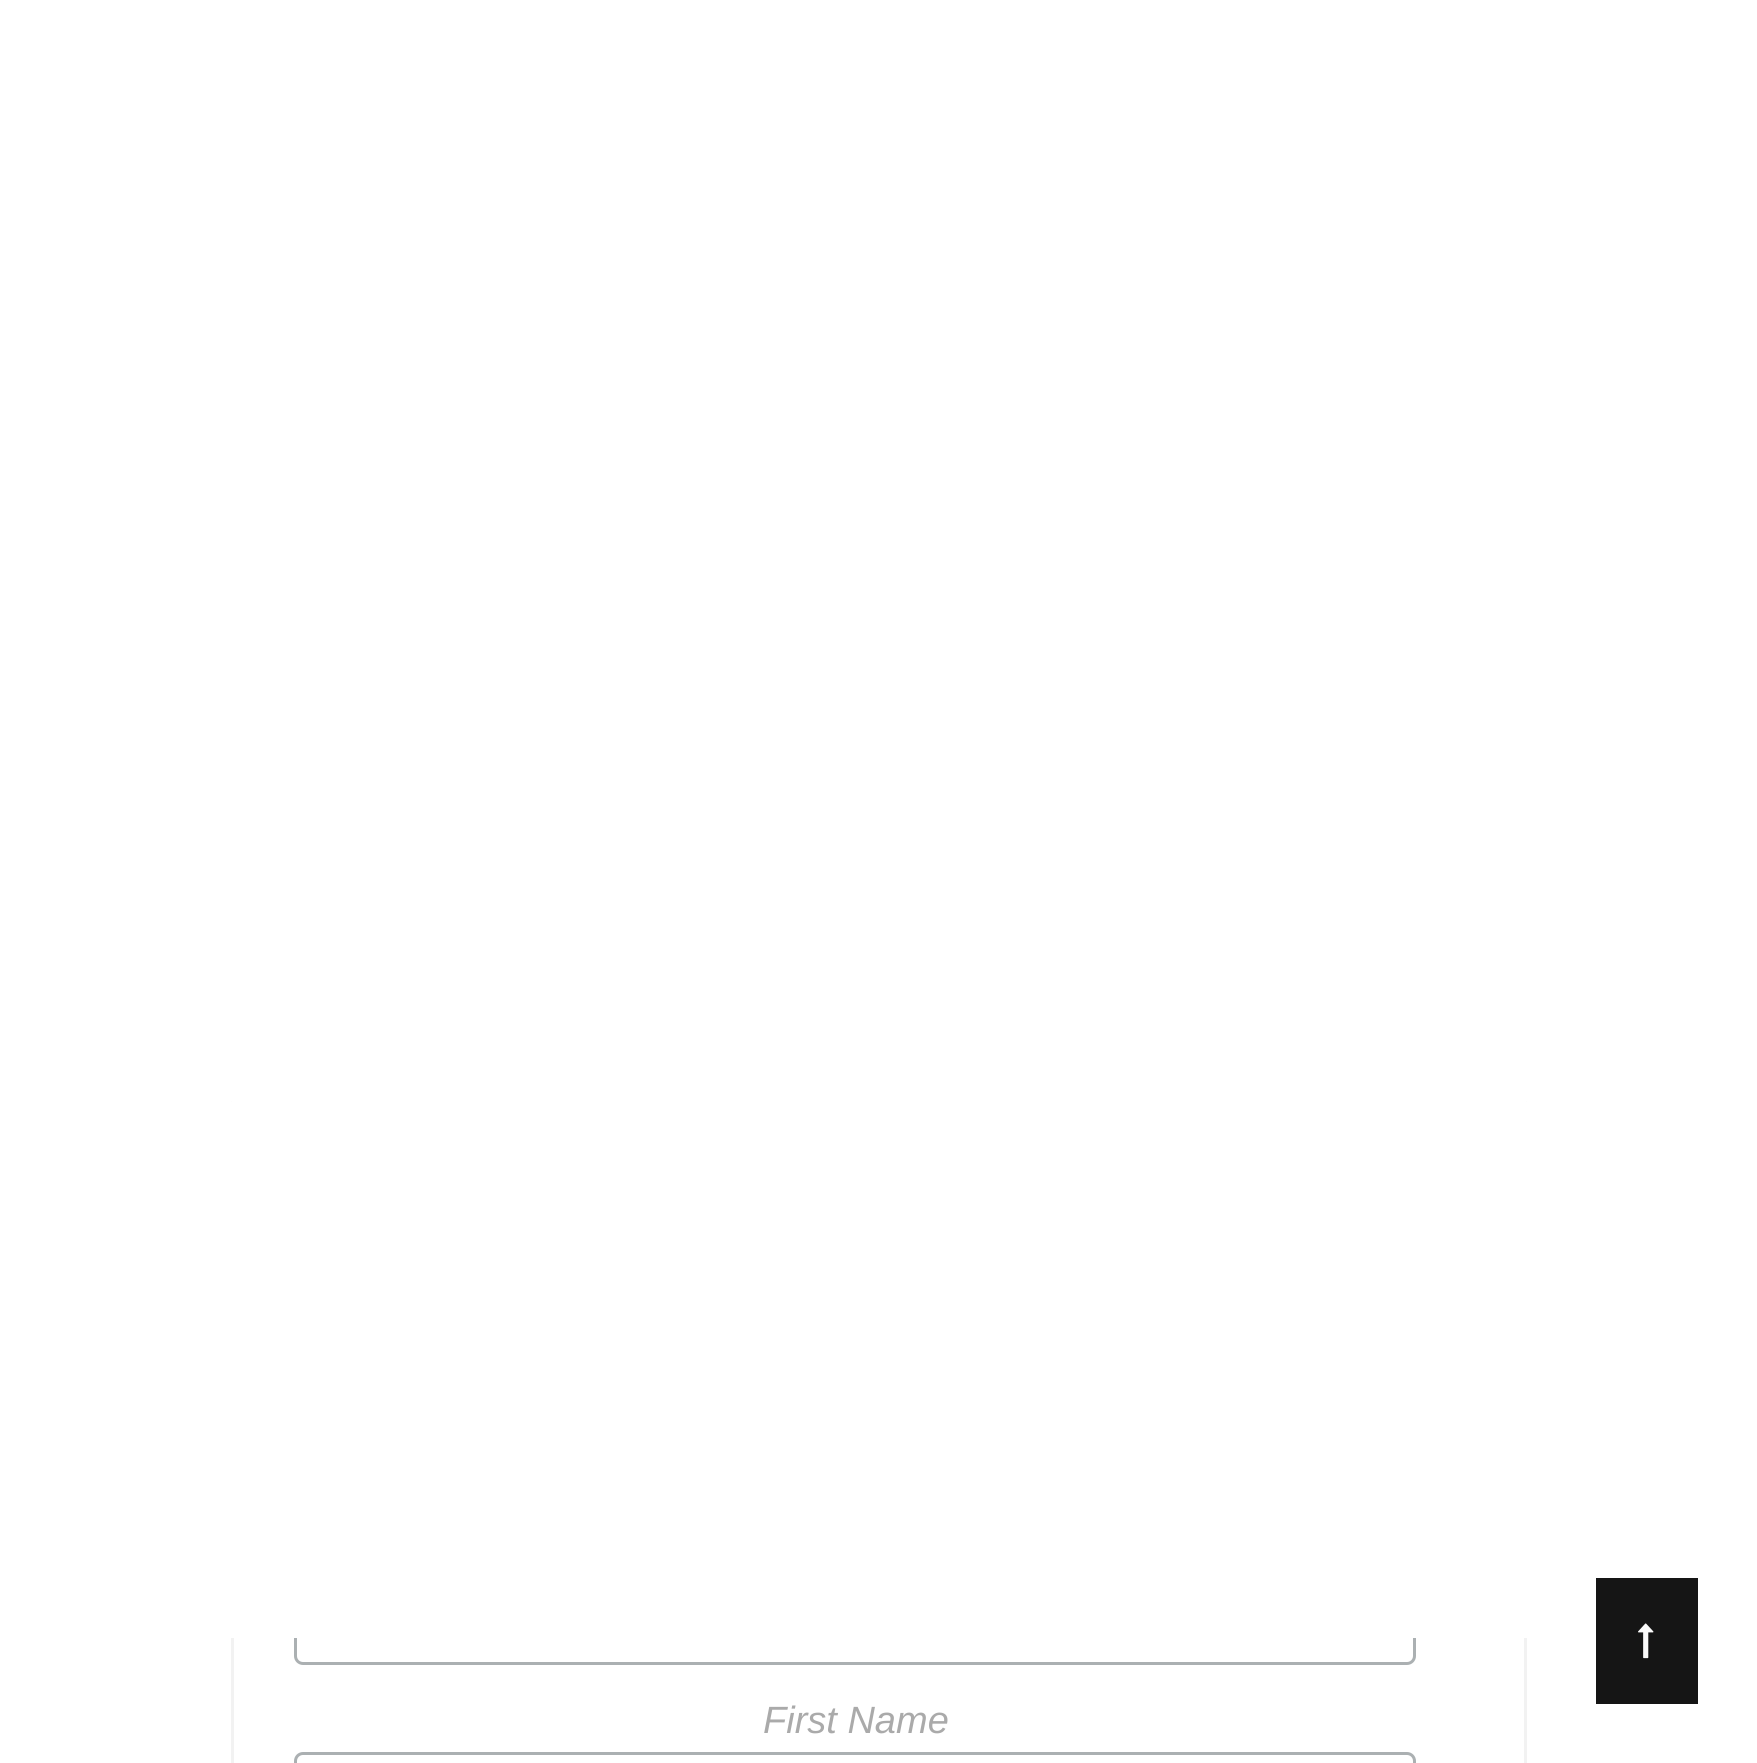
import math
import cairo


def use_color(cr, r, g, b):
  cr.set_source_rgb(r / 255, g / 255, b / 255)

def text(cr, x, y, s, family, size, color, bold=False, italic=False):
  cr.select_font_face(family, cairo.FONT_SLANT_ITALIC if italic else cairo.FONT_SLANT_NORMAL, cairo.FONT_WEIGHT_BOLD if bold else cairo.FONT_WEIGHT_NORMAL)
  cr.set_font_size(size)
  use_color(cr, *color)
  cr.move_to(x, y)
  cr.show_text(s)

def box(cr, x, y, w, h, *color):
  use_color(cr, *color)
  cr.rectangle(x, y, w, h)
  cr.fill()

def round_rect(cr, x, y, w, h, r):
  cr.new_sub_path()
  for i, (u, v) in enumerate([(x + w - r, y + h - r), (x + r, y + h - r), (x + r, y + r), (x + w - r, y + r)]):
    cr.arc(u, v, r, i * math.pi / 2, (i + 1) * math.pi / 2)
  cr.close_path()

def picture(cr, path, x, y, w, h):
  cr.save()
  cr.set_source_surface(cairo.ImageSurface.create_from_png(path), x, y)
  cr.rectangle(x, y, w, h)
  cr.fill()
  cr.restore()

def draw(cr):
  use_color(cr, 255, 255, 255)
  cr.paint()
  cr.set_source_rgba(0.067, 0.067, 0.067, 0.98)
  cr.rectangle(1596, 1578, 102, 126)
  cr.fill()
  picture(cr, "img_01.png", 1638, 1623, 16, 36)
  use_color(cr, 242, 242, 242)
  cr.new_path()
  cr.move_to(1527, 1101)
  cr.line_to(1527, 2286)
  cr.line_to(1524, 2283)
  cr.line_to(1524, 1113)
  cr.close_path()
  cr.fill()
  cr.new_path()
  cr.move_to(231, 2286)
  cr.line_to(231, 1101)
  cr.line_to(234, 1113)
  cr.line_to(234, 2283)
  cr.close_path()
  cr.fill()
  round_rect(cr, 295.5, 1552.5, 1119, 111, 7.5)
  use_color(cr, 171, 176, 178)
  cr.set_line_width(3)
  cr.stroke()
  box(cr, 231, 1102, 1296, 536, 255, 255, 255)
  round_rect(cr, 295.5, 1753.5, 1119, 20, 7.5)
  use_color(cr, 171, 176, 178)
  cr.stroke()
  text(cr, 763, 1733, "First Name", "Liberation Sans", 38, (170, 170, 170), italic=True)


surface = cairo.ImageSurface(cairo.FORMAT_RGB24, 1757, 1763)
cr = cairo.Context(surface)
options = cairo.FontOptions()
options.set_hint_metrics(cairo.HINT_METRICS_OFF)
options.set_hint_style(cairo.HINT_STYLE_NONE)
cr.set_font_options(options)
cr.set_miter_limit(4)
draw(cr)
surface.write_to_png("out.png")
